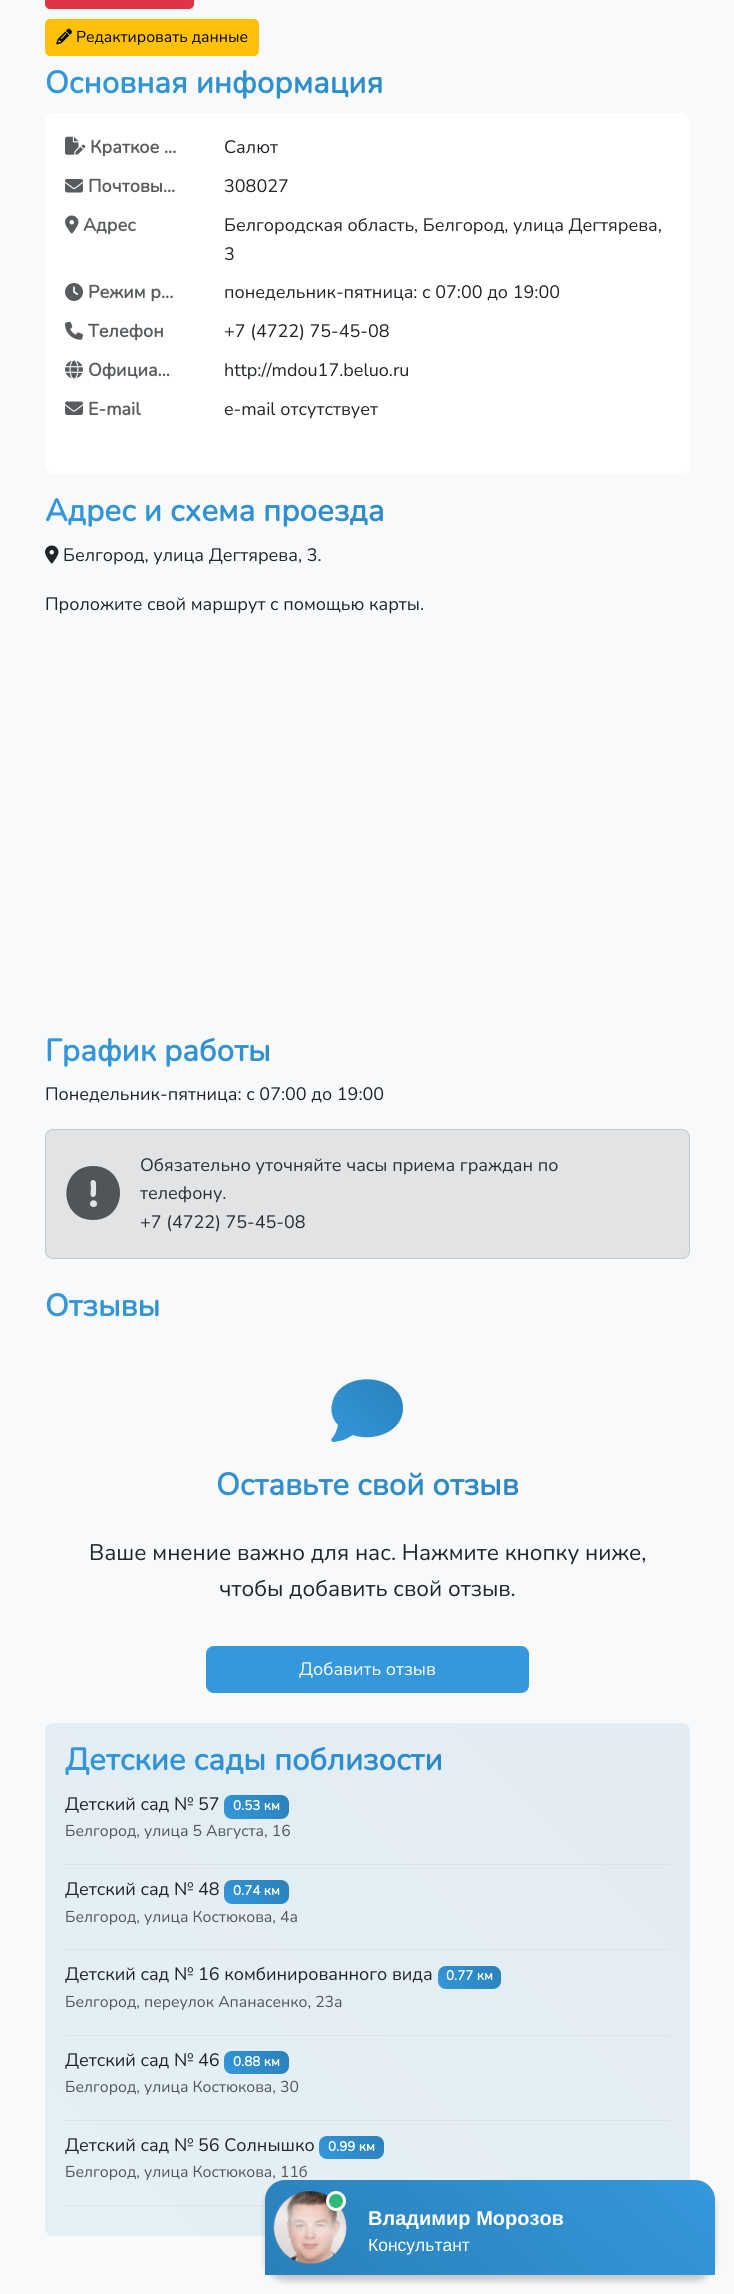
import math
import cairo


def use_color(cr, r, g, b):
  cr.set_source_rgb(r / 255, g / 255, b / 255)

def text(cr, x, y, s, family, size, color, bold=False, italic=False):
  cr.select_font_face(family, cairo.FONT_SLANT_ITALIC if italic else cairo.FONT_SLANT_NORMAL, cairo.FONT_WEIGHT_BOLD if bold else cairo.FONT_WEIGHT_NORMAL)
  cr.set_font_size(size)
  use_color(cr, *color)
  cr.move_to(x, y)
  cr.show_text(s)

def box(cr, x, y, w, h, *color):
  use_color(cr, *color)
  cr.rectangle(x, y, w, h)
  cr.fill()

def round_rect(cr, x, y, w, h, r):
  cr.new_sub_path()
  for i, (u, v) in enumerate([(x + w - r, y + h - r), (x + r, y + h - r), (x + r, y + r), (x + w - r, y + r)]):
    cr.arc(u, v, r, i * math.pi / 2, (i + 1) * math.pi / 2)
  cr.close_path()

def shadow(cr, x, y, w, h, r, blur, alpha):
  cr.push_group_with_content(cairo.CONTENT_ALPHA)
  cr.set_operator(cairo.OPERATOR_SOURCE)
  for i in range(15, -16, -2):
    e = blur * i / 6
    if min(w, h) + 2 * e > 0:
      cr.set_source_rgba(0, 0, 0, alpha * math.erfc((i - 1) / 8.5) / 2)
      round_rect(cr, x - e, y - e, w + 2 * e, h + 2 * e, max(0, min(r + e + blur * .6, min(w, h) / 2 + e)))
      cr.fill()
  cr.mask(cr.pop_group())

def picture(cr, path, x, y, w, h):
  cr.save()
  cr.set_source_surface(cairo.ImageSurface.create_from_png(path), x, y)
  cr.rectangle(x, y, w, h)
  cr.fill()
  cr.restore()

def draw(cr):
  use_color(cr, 248, 249, 250)
  cr.paint()
  use_color(cr, 220, 53, 69)
  round_rect(cr, 45.5, -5.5, 148, 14, 4.5)
  cr.fill_preserve()
  cr.set_line_width(1)
  cr.stroke()
  use_color(cr, 255, 193, 7)
  round_rect(cr, 45.5, 19.5, 213, 36, 4.5)
  cr.fill_preserve()
  cr.stroke()
  picture(cr, "img_01.png", 56, 28, 16, 17)
  use_color(cr, 255, 255, 255)
  round_rect(cr, 45, 113, 645, 361, 10)
  cr.fill()
  picture(cr, "img_02.png", 65, 136, 21, 19)
  picture(cr, "img_03.png", 65, 179, 18, 14)
  picture(cr, "img_04.png", 65, 215, 14, 19)
  picture(cr, "img_05.png", 65, 283, 18, 18)
  picture(cr, "img_06.png", 65, 321, 18, 19)
  picture(cr, "img_07.png", 65, 360, 18, 19)
  picture(cr, "img_08.png", 65, 401, 18, 14)
  picture(cr, "img_09.png", 45, 545, 14, 19)
  use_color(cr, 226, 227, 229)
  round_rect(cr, 45.5, 1129.5, 644, 129, 7.5)
  cr.fill_preserve()
  use_color(cr, 196, 200, 203)
  cr.stroke()
  use_color(cr, 81, 85, 88)
  cr.new_path()
  cr.move_to(93, 1220)
  cr.curve_to(129, 1220, 129, 1166, 93, 1166)
  cr.curve_to(58, 1166, 57, 1220, 93, 1220)
  cr.close_path()
  cr.move_to(93, 1180)
  cr.curve_to(97, 1180, 96, 1186, 96, 1188)
  cr.curve_to(96, 1191, 97, 1197, 93, 1197)
  cr.curve_to(89, 1197, 91, 1191, 91, 1188)
  cr.curve_to(91, 1186, 89, 1180, 93, 1180)
  cr.close_path()
  cr.move_to(90, 1204)
  cr.curve_to(90, 1199, 97, 1199, 97, 1204)
  cr.curve_to(97, 1208, 90, 1208, 90, 1204)
  cr.close_path()
  cr.fill()
  gradient = cairo.LinearGradient(332, 1447, 403, 1375)
  gradient.add_color_stop_rgba(0, 0.204, 0.596, 0.859, 1)
  gradient.add_color_stop_rgba(1, 0.161, 0.502, 0.725, 1)
  cr.set_source(gradient)
  cr.new_path()
  cr.move_to(403, 1408)
  cr.curve_to(403, 1433, 372, 1442, 353, 1435)
  cr.curve_to(348, 1438, 343, 1441, 338, 1441)
  cr.curve_to(336, 1442, 332, 1443, 331, 1440)
  cr.line_to(332, 1438)
  cr.curve_to(335, 1435, 337, 1430, 338, 1425)
  cr.curve_to(333, 1420, 330, 1412, 332, 1404)
  cr.curve_to(338, 1369, 403, 1372, 403, 1408)
  cr.close_path()
  cr.fill()
  use_color(cr, 52, 152, 219)
  round_rect(cr, 206.5, 1646.5, 322, 46, 7.5)
  cr.fill_preserve()
  cr.stroke()
  gradient = cairo.LinearGradient(78, 2269, 657, 1690)
  gradient.add_color_stop_rgba(0, 0.894, 0.937, 0.965, 1)
  gradient.add_color_stop_rgba(1, 0.89, 0.925, 0.949, 1)
  cr.set_source(gradient)
  round_rect(cr, 45, 1723, 645, 513, 8)
  cr.fill()
  box(cr, 65, 1864, 605, 1, 222, 226, 230)
  gradient = cairo.LinearGradient(234, 1829, 278, 1785)
  gradient.add_color_stop_rgba(0, 0.204, 0.596, 0.859, 1)
  gradient.add_color_stop_rgba(1, 0.161, 0.502, 0.725, 1)
  cr.set_source(gradient)
  round_rect(cr, 224, 1795, 65, 24, 8)
  cr.fill()
  box(cr, 65, 1949, 605, 1, 222, 226, 230)
  gradient = cairo.LinearGradient(234, 1914, 278, 1870)
  gradient.add_color_stop_rgba(0, 0.204, 0.596, 0.859, 1)
  gradient.add_color_stop_rgba(1, 0.161, 0.502, 0.725, 1)
  cr.set_source(gradient)
  round_rect(cr, 224, 1880, 65, 24, 8)
  cr.fill()
  box(cr, 65, 2035, 605, 1, 222, 226, 230)
  gradient = cairo.LinearGradient(448, 1999, 491, 1956)
  gradient.add_color_stop_rgba(0, 0.204, 0.596, 0.859, 1)
  gradient.add_color_stop_rgba(1, 0.161, 0.502, 0.725, 1)
  cr.set_source(gradient)
  round_rect(cr, 438, 1966, 63, 23, 8)
  cr.fill()
  box(cr, 65, 2120, 605, 1, 222, 226, 230)
  gradient = cairo.LinearGradient(234, 2084, 278, 2041)
  gradient.add_color_stop_rgba(0, 0.204, 0.596, 0.859, 1)
  gradient.add_color_stop_rgba(1, 0.161, 0.502, 0.725, 1)
  cr.set_source(gradient)
  round_rect(cr, 224, 2051, 65, 23, 8)
  cr.fill()
  box(cr, 65, 2205, 200, 1, 222, 226, 230)
  gradient = cairo.LinearGradient(329, 2169, 373, 2126)
  gradient.add_color_stop_rgba(0, 0.204, 0.596, 0.859, 1)
  gradient.add_color_stop_rgba(1, 0.161, 0.502, 0.725, 1)
  cr.set_source(gradient)
  round_rect(cr, 319, 2136, 65, 23, 8)
  cr.fill()
  use_color(cr, 0, 0, 0)
  shadow(cr, 265, 2186, 450, 95, 20, 3, 0.2)
  gradient = cairo.LinearGradient(626, 2091, 354, 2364)
  gradient.add_color_stop_rgba(0, 0.204, 0.596, 0.859, 1)
  gradient.add_color_stop_rgba(1, 0.161, 0.502, 0.725, 1)
  cr.set_source(gradient)
  cr.new_path()
  cr.move_to(285, 2180)
  cr.line_to(695, 2180)
  cr.curve_to(706, 2180, 715, 2189, 715, 2200)
  cr.line_to(715, 2275)
  cr.line_to(265, 2275)
  cr.line_to(265, 2200)
  cr.curve_to(265, 2189, 274, 2180, 285, 2180)
  cr.close_path()
  cr.fill()
  cr.set_source_rgba(0, 0, 0, 0.25)
  round_rect(cr, 274, 2191, 72, 73, 36)
  cr.fill()
  picture(cr, "img_10.png", 273, 2191, 74, 74)
  gradient = cairo.LinearGradient(322, 2198, 298, 2266)
  gradient.add_color_stop_rgba(0, 1, 1, 1, 0)
  gradient.add_color_stop_rgba(0.4, 1, 1, 1, 0.6)
  gradient.add_color_stop_rgba(0.6, 1, 1, 1, 0.36)
  gradient.add_color_stop_rgba(1, 1, 1, 1, 0)
  cr.set_source(gradient)
  cr.new_path()
  cr.move_to(306, 2191)
  cr.line_to(337, 2203)
  cr.line_to(342, 2211)
  cr.curve_to(359, 2243, 322, 2279, 290, 2258)
  cr.curve_to(282, 2253, 277, 2244, 275, 2235)
  cr.curve_to(271, 2215, 284, 2194, 306, 2191)
  cr.close_path()
  cr.fill()
  use_color(cr, 49, 185, 120)
  cr.arc(336, 2201, 8.5, 0, 2 * math.pi)
  cr.fill_preserve()
  use_color(cr, 255, 255, 255)
  cr.set_line_width(3)
  cr.stroke()
  text(cr, 76, 42, "Редактировать данные", "Nunito ExtraLight", 15.75, (0, 0, 0))
  cr.select_font_face("Nunito", cairo.FONT_SLANT_NORMAL, cairo.FONT_WEIGHT_BOLD)
  cr.set_font_size(31)
  gradient = cairo.LinearGradient(197, 255, 538, -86)
  gradient.add_color_stop_rgba(0, 0.204, 0.596, 0.859, 1)
  gradient.add_color_stop_rgba(1, 0.161, 0.502, 0.725, 1)
  cr.set_source(gradient)
  cr.move_to(45, 93)
  cr.show_text("Основная информация")
  text(cr, 90, 153, "Краткое ...", "Nunito", 18, (89, 92, 95), bold=True)
  text(cr, 224, 153, "Салют", "Nunito ExtraLight", 18, (33, 37, 41))
  text(cr, 88, 192, "Почтовы...", "Nunito", 18, (89, 92, 95), bold=True)
  text(cr, 224, 192, "308027", "Nunito ExtraLight", 18, (33, 37, 41))
  text(cr, 83, 231, "Адрес", "Nunito", 18, (89, 92, 95), bold=True)
  text(cr, 224, 231, "Белгородская область, Белгород, улица Дегтярева,", "Nunito ExtraLight", 18, (33, 37, 41))
  text(cr, 224, 260, "3", "Nunito ExtraLight", 18, (33, 37, 41))
  text(cr, 88, 298, "Режим р...", "Nunito", 18, (89, 92, 95), bold=True)
  text(cr, 224, 298, "понедельник-пятница: с 07:00 до 19:00", "Nunito ExtraLight", 18, (33, 37, 41))
  text(cr, 88, 337, "Телефон", "Nunito", 18, (89, 92, 95), bold=True)
  text(cr, 224, 337, "+7 (4722) 75-45-08", "Nunito ExtraLight", 18, (33, 37, 41))
  text(cr, 88, 376, "Официа...", "Nunito", 18, (89, 92, 95), bold=True)
  text(cr, 224, 376, "http://mdou17.beluo.ru", "Nunito ExtraLight", 18, (33, 37, 41))
  text(cr, 88, 415, "E-mail", "Nunito", 18, (89, 92, 95), bold=True)
  text(cr, 224, 415, "e-mail отсутствует", "Nunito ExtraLight", 18, (33, 37, 41))
  cr.select_font_face("Nunito", cairo.FONT_SLANT_NORMAL, cairo.FONT_WEIGHT_BOLD)
  cr.set_font_size(31)
  gradient = cairo.LinearGradient(197, 683, 538, 342)
  gradient.add_color_stop_rgba(0, 0.204, 0.596, 0.859, 1)
  gradient.add_color_stop_rgba(1, 0.161, 0.502, 0.725, 1)
  cr.set_source(gradient)
  cr.move_to(45, 521)
  cr.show_text("Адрес и схема проезда")
  text(cr, 63, 561, "Белгород, улица Дегтярева, 3.", "Nunito ExtraLight", 18, (33, 37, 41))
  text(cr, 45, 610, "Проложите свой маршрут с помощью карты.", "Nunito ExtraLight", 18, (33, 37, 41))
  cr.select_font_face("Nunito", cairo.FONT_SLANT_NORMAL, cairo.FONT_WEIGHT_BOLD)
  cr.set_font_size(31)
  gradient = cairo.LinearGradient(197, 1222, 538, 881)
  gradient.add_color_stop_rgba(0, 0.204, 0.596, 0.859, 1)
  gradient.add_color_stop_rgba(1, 0.161, 0.502, 0.725, 1)
  cr.set_source(gradient)
  cr.move_to(45, 1061)
  cr.show_text("График работы")
  text(cr, 45, 1100, "Понедельник-пятница: с 07:00 до 19:00", "Nunito ExtraLight", 18, (33, 37, 41))
  text(cr, 140, 1171, "Обязательно уточняйте часы приема граждан по", "Nunito ExtraLight", 18, (43, 47, 50))
  text(cr, 140, 1199, "телефону.", "Nunito ExtraLight", 18, (43, 47, 50))
  text(cr, 140, 1228, "+7 (4722) 75-45-08", "Nunito ExtraLight", 18, (43, 47, 50))
  cr.select_font_face("Nunito", cairo.FONT_SLANT_NORMAL, cairo.FONT_WEIGHT_BOLD)
  cr.set_font_size(31)
  gradient = cairo.LinearGradient(197, 1477, 538, 1136)
  gradient.add_color_stop_rgba(0, 0.204, 0.596, 0.859, 1)
  gradient.add_color_stop_rgba(1, 0.161, 0.502, 0.725, 1)
  cr.set_source(gradient)
  cr.move_to(45, 1316)
  cr.show_text("Отзывы")
  gradient = cairo.LinearGradient(207, 1646, 528, 1325)
  gradient.add_color_stop_rgba(0, 0.204, 0.596, 0.859, 1)
  gradient.add_color_stop_rgba(1, 0.161, 0.502, 0.725, 1)
  cr.set_source(gradient)
  cr.move_to(216, 1495)
  cr.show_text("Оставьте свой отзыв")
  text(cr, 89, 1560, "Ваше мнение важно для нас. Нажмите кнопку ниже,", "Nunito ExtraLight", 22.5, (33, 37, 41))
  text(cr, 219, 1596, "чтобы добавить свой отзыв.", "Nunito ExtraLight", 22.5, (33, 37, 41))
  text(cr, 299, 1675, "Добавить отзыв", "Nunito ExtraLight", 18, (255, 255, 255))
  cr.select_font_face("Nunito", cairo.FONT_SLANT_NORMAL, cairo.FONT_WEIGHT_BOLD)
  cr.set_font_size(31)
  gradient = cairo.LinearGradient(207, 1922, 528, 1601)
  gradient.add_color_stop_rgba(0, 0.204, 0.596, 0.859, 1)
  gradient.add_color_stop_rgba(1, 0.161, 0.502, 0.725, 1)
  cr.set_source(gradient)
  cr.move_to(65, 1770)
  cr.show_text("Детские сады поблизости")
  text(cr, 65, 1810, "Детский сад № 57", "Nunito ExtraLight", 18, (33, 37, 41))
  text(cr, 233, 1810, "0.53 км", "Nunito", 13.5, (255, 255, 255), bold=True)
  text(cr, 65, 1836, "Белгород, улица 5 Августа, 16", "Nunito ExtraLight", 15.75, (82, 87, 92))
  text(cr, 65, 1895, "Детский сад № 48", "Nunito ExtraLight", 18, (33, 37, 41))
  text(cr, 233, 1895, "0.74 км", "Nunito", 13.5, (255, 255, 255), bold=True)
  text(cr, 65, 1922, "Белгород, улица Костюкова, 4а", "Nunito ExtraLight", 15.75, (82, 87, 92))
  text(cr, 65, 1980, "Детский сад № 16 комбинированного вида", "Nunito ExtraLight", 18, (33, 37, 41))
  text(cr, 446, 1980, "0.77 км", "Nunito", 13.5, (255, 255, 255), bold=True)
  text(cr, 65, 2007, "Белгород, переулок Апанасенко, 23а", "Nunito ExtraLight", 15.75, (82, 87, 92))
  text(cr, 65, 2066, "Детский сад № 46", "Nunito ExtraLight", 18, (33, 37, 41))
  text(cr, 233, 2066, "0.88 км", "Nunito", 13.5, (255, 255, 255), bold=True)
  text(cr, 65, 2092, "Белгород, улица Костюкова, 30", "Nunito ExtraLight", 15.75, (82, 87, 92))
  text(cr, 65, 2151, "Детский сад № 56 Солнышко", "Nunito ExtraLight", 18, (33, 37, 41))
  text(cr, 328, 2151, "0.99 км", "Nunito", 13.5, (255, 255, 255), bold=True)
  text(cr, 65, 2177, "Белгород, улица Костюкова, 11б", "Nunito ExtraLight", 15.75, (82, 87, 92))
  text(cr, 368, 2225, "Владимир Морозов", "Liberation Sans", 20, (255, 255, 255), bold=True)
  text(cr, 368, 2251, "Консультант", "Liberation Sans", 17.5, (255, 255, 255))


surface = cairo.ImageSurface(cairo.FORMAT_RGB24, 734, 2294)
cr = cairo.Context(surface)
options = cairo.FontOptions()
options.set_hint_metrics(cairo.HINT_METRICS_OFF)
options.set_hint_style(cairo.HINT_STYLE_NONE)
cr.set_font_options(options)
cr.set_miter_limit(4)
draw(cr)
surface.write_to_png("out.png")
